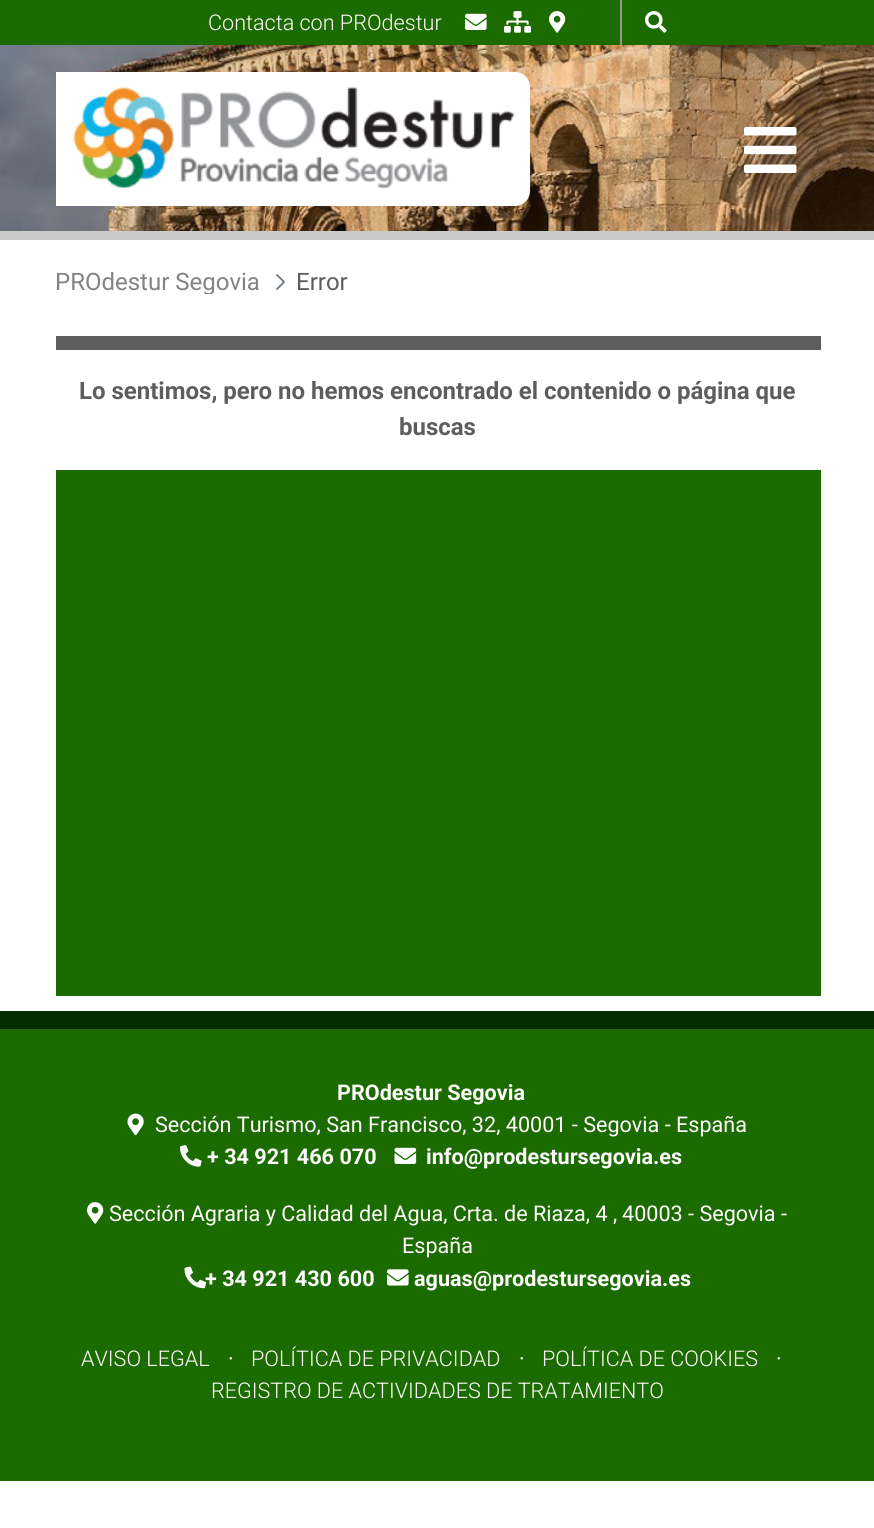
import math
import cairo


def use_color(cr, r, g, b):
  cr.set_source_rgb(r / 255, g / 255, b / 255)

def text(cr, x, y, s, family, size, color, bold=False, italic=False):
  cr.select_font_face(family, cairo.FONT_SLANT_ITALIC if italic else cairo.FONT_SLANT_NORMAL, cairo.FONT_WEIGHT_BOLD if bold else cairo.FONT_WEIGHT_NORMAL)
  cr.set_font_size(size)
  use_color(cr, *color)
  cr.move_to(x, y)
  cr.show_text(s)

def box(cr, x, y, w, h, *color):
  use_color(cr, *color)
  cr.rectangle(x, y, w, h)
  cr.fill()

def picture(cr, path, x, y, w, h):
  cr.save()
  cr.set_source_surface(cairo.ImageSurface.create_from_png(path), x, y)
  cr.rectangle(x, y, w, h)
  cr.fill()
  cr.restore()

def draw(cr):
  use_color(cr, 255, 255, 255)
  cr.paint()
  box(cr, 0, 231, 874, 9, 202, 202, 202)
  picture(cr, "img_01.png", 0, 45, 874, 186)
  box(cr, 0, 0, 874, 45, 28, 107, 1)
  picture(cr, "img_02.png", 465, 13, 22, 17)
  picture(cr, "img_03.png", 504, 11, 27, 22)
  picture(cr, "img_04.png", 549, 11, 17, 22)
  box(cr, 620, 0, 2, 45, 150, 150, 150)
  picture(cr, "img_05.png", 645, 11, 22, 22)
  use_color(cr, 255, 255, 255)
  cr.new_path()
  cr.move_to(56, 72)
  cr.line_to(515, 72)
  cr.curve_to(523.5, 72, 530, 78.5, 530, 87)
  cr.line_to(530, 191)
  cr.curve_to(530, 199.5, 523.5, 206, 515, 206)
  cr.line_to(56, 206)
  cr.close_path()
  cr.fill()
  picture(cr, "img_06.png", 73, 86, 442, 103)
  picture(cr, "img_07.png", 744, 127, 53, 46)
  picture(cr, "img_08.png", 276, 274, 9, 16)
  box(cr, 56, 336, 765, 14, 93, 93, 93)
  box(cr, 56, 470, 765, 526, 28, 107, 1)
  box(cr, 0, 1011, 874, 18, 3, 45, 0)
  box(cr, 0, 1029, 874, 452, 28, 107, 1)
  picture(cr, "img_09.png", 127, 1113, 17, 23)
  picture(cr, "img_10.png", 180, 1145, 22, 22)
  picture(cr, "img_11.png", 394, 1147, 23, 17)
  picture(cr, "img_04.png", 87, 1202, 17, 22)
  picture(cr, "img_12.png", 184, 1266, 23, 23)
  picture(cr, "img_13.png", 387, 1269, 22, 17)
  text(cr, 208, 30, "Contacta con PROdestur", "Roboto Light", 21.6, (255, 255, 255))
  cr.save()
  cr.rectangle(56, 270, 204, 24)
  cr.clip()
  text(cr, 55, 290, "PROdestur Segovia", "Roboto", 24, (131, 131, 131))
  cr.restore()
  text(cr, 296, 290, "Error", "Roboto", 24, (93, 93, 93))
  text(cr, 79, 399, "Lo sentimos, pero no hemos encontrado el contenido o página que", "Roboto", 24, (93, 93, 93), bold=True)
  text(cr, 399, 435, "buscas", "Roboto", 24, (93, 93, 93), bold=True)
  text(cr, 337, 1100, "PROdestur Segovia", "Roboto", 21.6, (255, 255, 255), bold=True)
  text(cr, 155, 1132, "Sección Turismo, San Francisco, 32, 40001 - Segovia - España", "Roboto", 21.6, (255, 255, 255))
  text(cr, 207, 1164, "+ 34 921 466 070", "Roboto", 21.6, (255, 255, 255), bold=True)
  text(cr, 426, 1164, "info@prodestursegovia.es", "Roboto", 21.6, (255, 255, 255), bold=True)
  text(cr, 109, 1221, "Sección Agraria y Calidad del Agua, Crta. de Riaza, 4 ,", "Roboto", 21.6, (255, 255, 255))
  text(cr, 622, 1221, "40003 - Segovia -", "Roboto", 21.6, (255, 255, 255))
  text(cr, 402, 1253, "España", "Roboto", 21.6, (255, 255, 255))
  text(cr, 205, 1286, "+ 34 921 430 600", "Roboto", 21.6, (255, 255, 255), bold=True)
  text(cr, 414, 1286, "aguas@prodestursegovia.es", "Roboto", 21.6, (255, 255, 255), bold=True)
  text(cr, 81, 1366, "AVISO LEGAL", "Roboto Light", 21.6, (255, 255, 255))
  text(cr, 228, 1366, "·", "Roboto", 21.6, (255, 255, 255))
  text(cr, 251, 1366, "POLÍTICA DE PRIVACIDAD", "Roboto Light", 21.6, (255, 255, 255))
  text(cr, 519, 1366, "·", "Roboto", 21.6, (255, 255, 255))
  text(cr, 542, 1366, "POLÍTICA DE COOKIES", "Roboto Light", 21.6, (255, 255, 255))
  text(cr, 776, 1366, "·", "Roboto", 21.6, (255, 255, 255))
  text(cr, 211, 1398, "REGISTRO DE ACTIVIDADES DE TRATAMIENTO", "Roboto Light", 21.6, (255, 255, 255))


surface = cairo.ImageSurface(cairo.FORMAT_RGB24, 874, 1528)
cr = cairo.Context(surface)
options = cairo.FontOptions()
options.set_hint_metrics(cairo.HINT_METRICS_OFF)
options.set_hint_style(cairo.HINT_STYLE_NONE)
cr.set_font_options(options)
cr.set_miter_limit(4)
draw(cr)
surface.write_to_png("out.png")
